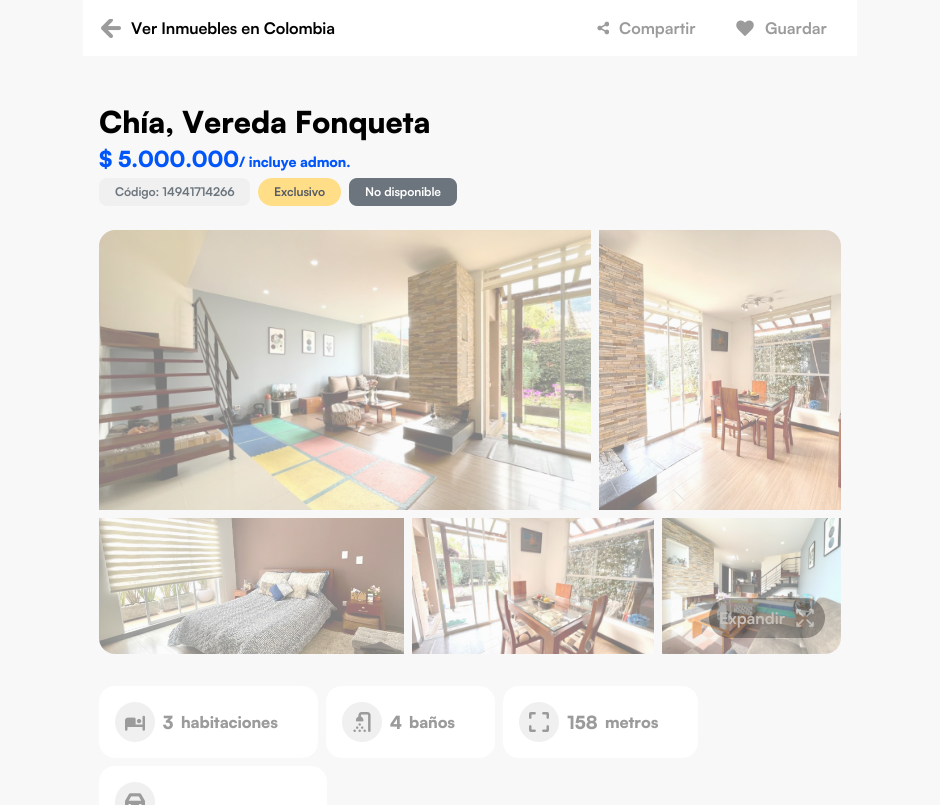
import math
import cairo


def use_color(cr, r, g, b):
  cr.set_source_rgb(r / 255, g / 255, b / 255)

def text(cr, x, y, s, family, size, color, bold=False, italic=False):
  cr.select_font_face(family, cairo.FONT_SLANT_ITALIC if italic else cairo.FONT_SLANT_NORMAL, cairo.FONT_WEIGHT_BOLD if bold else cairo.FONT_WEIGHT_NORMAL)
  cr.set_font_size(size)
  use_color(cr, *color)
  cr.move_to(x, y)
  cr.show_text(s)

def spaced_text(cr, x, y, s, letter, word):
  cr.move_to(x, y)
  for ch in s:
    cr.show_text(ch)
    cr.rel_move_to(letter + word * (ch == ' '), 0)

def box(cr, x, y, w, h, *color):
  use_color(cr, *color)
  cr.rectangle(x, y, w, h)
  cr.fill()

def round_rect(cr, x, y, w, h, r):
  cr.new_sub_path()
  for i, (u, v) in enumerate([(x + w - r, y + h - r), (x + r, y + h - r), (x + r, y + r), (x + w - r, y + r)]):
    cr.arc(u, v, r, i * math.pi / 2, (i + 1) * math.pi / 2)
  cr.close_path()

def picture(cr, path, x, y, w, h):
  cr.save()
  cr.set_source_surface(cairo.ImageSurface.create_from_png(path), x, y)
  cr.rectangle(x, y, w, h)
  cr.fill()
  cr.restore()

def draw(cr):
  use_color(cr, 248, 248, 248)
  cr.paint()
  box(cr, 83, 0, 774, 56, 255, 255, 255)
  picture(cr, "img_01.png", 101, 19, 20, 19)
  picture(cr, "img_02.png", 597, 21, 12, 14)
  picture(cr, "img_03.png", 736, 20, 18, 16)
  use_color(cr, 240, 240, 240)
  round_rect(cr, 99, 178, 151, 28, 8)
  cr.fill()
  use_color(cr, 255, 222, 135)
  round_rect(cr, 258, 178, 83, 28, 14)
  cr.fill()
  use_color(cr, 108, 117, 125)
  round_rect(cr, 349, 178, 108, 28, 8)
  cr.fill()
  picture(cr, "img_04.png", 99, 230, 492, 280)
  picture(cr, "img_05.png", 599, 230, 242, 280)
  picture(cr, "img_06.png", 99, 518, 305, 136)
  picture(cr, "img_07.png", 412, 518, 242, 136)
  picture(cr, "img_08.png", 662, 518, 179, 136)
  cr.set_source_rgba(0, 0, 0, 0.3)
  round_rect(cr, 709, 598, 116, 40, 20)
  cr.fill()
  picture(cr, "img_09.png", 796, 609, 18, 18)
  use_color(cr, 255, 255, 255)
  round_rect(cr, 99, 686, 219, 72, 16)
  cr.fill()
  use_color(cr, 240, 240, 240)
  cr.arc(135, 722, 20, 0, 2 * math.pi)
  cr.fill()
  picture(cr, "img_10.png", 125, 715, 20, 16)
  use_color(cr, 255, 255, 255)
  round_rect(cr, 326, 686, 169, 72, 16)
  cr.fill()
  use_color(cr, 240, 240, 240)
  cr.arc(362, 722, 20, 0, 2 * math.pi)
  cr.fill()
  picture(cr, "img_11.png", 353, 712, 18, 20)
  use_color(cr, 255, 255, 255)
  round_rect(cr, 503, 686, 195, 72, 16)
  cr.fill()
  use_color(cr, 240, 240, 240)
  cr.arc(539, 722, 20, 0, 2 * math.pi)
  cr.fill()
  picture(cr, "img_12.png", 529, 712, 20, 20)
  use_color(cr, 255, 255, 255)
  round_rect(cr, 99, 766, 228, 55, 16)
  cr.fill()
  use_color(cr, 240, 240, 240)
  cr.arc(135, 802, 20, 0, 2 * math.pi)
  cr.fill()
  picture(cr, "img_13.png", 125, 793, 20, 12)
  cr.select_font_face("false", cairo.FONT_SLANT_NORMAL, cairo.FONT_WEIGHT_BOLD)
  cr.set_font_size(16)
  use_color(cr, 0, 0, 0)
  spaced_text(cr, 131, 34, "Ver Inmuebles en Colombia", -0.1, 0)
  text(cr, 619, 34, "Compartir", "false", 16, (155, 155, 155), bold=True)
  text(cr, 765, 34, "Guardar", "false", 16, (155, 155, 155), bold=True)
  cr.select_font_face("Satoshi Black")
  cr.set_font_size(30)
  use_color(cr, 0, 0, 0)
  spaced_text(cr, 99, 133, "Chía, Vereda Fonqueta", -0.1, 0)
  cr.set_font_size(22)
  use_color(cr, 0, 85, 251)
  spaced_text(cr, 99, 167, "$ 5.000.000", -0.1, 0)
  cr.set_font_size(14)
  spaced_text(cr, 239, 167, "/ incluye admon.", -0.1, 0)
  cr.select_font_face("false", cairo.FONT_SLANT_NORMAL, cairo.FONT_WEIGHT_BOLD)
  cr.set_font_size(12)
  use_color(cr, 108, 117, 125)
  spaced_text(cr, 115, 196, "Código: 14941714266", -0.1, 0)
  use_color(cr, 85, 90, 100)
  spaced_text(cr, 274, 196, "Exclusivo", -0.1, 0)
  use_color(cr, 255, 255, 255)
  spaced_text(cr, 365, 196, "No disponible", -0.1, 0)
  text(cr, 719, 624, "Expandir", "false", 16, (199, 193, 188), bold=True)
  text(cr, 163, 729, "3", "Satoshi Black", 18, (155, 155, 155))
  cr.set_font_size(16)
  spaced_text(cr, 181, 728, "habitaciones", -0.1, 0)
  text(cr, 390, 729, "4", "Satoshi Black", 18, (155, 155, 155))
  cr.set_font_size(16)
  spaced_text(cr, 409, 728, "baños", -0.1, 0)
  text(cr, 567, 729, "158", "Satoshi Black", 18, (155, 155, 155))
  cr.set_font_size(16)
  spaced_text(cr, 605, 728, "metros", -0.1, 0)


surface = cairo.ImageSurface(cairo.FORMAT_RGB24, 940, 805)
cr = cairo.Context(surface)
options = cairo.FontOptions()
options.set_hint_metrics(cairo.HINT_METRICS_OFF)
options.set_hint_style(cairo.HINT_STYLE_NONE)
cr.set_font_options(options)
cr.set_miter_limit(4)
draw(cr)
surface.write_to_png("out.png")
